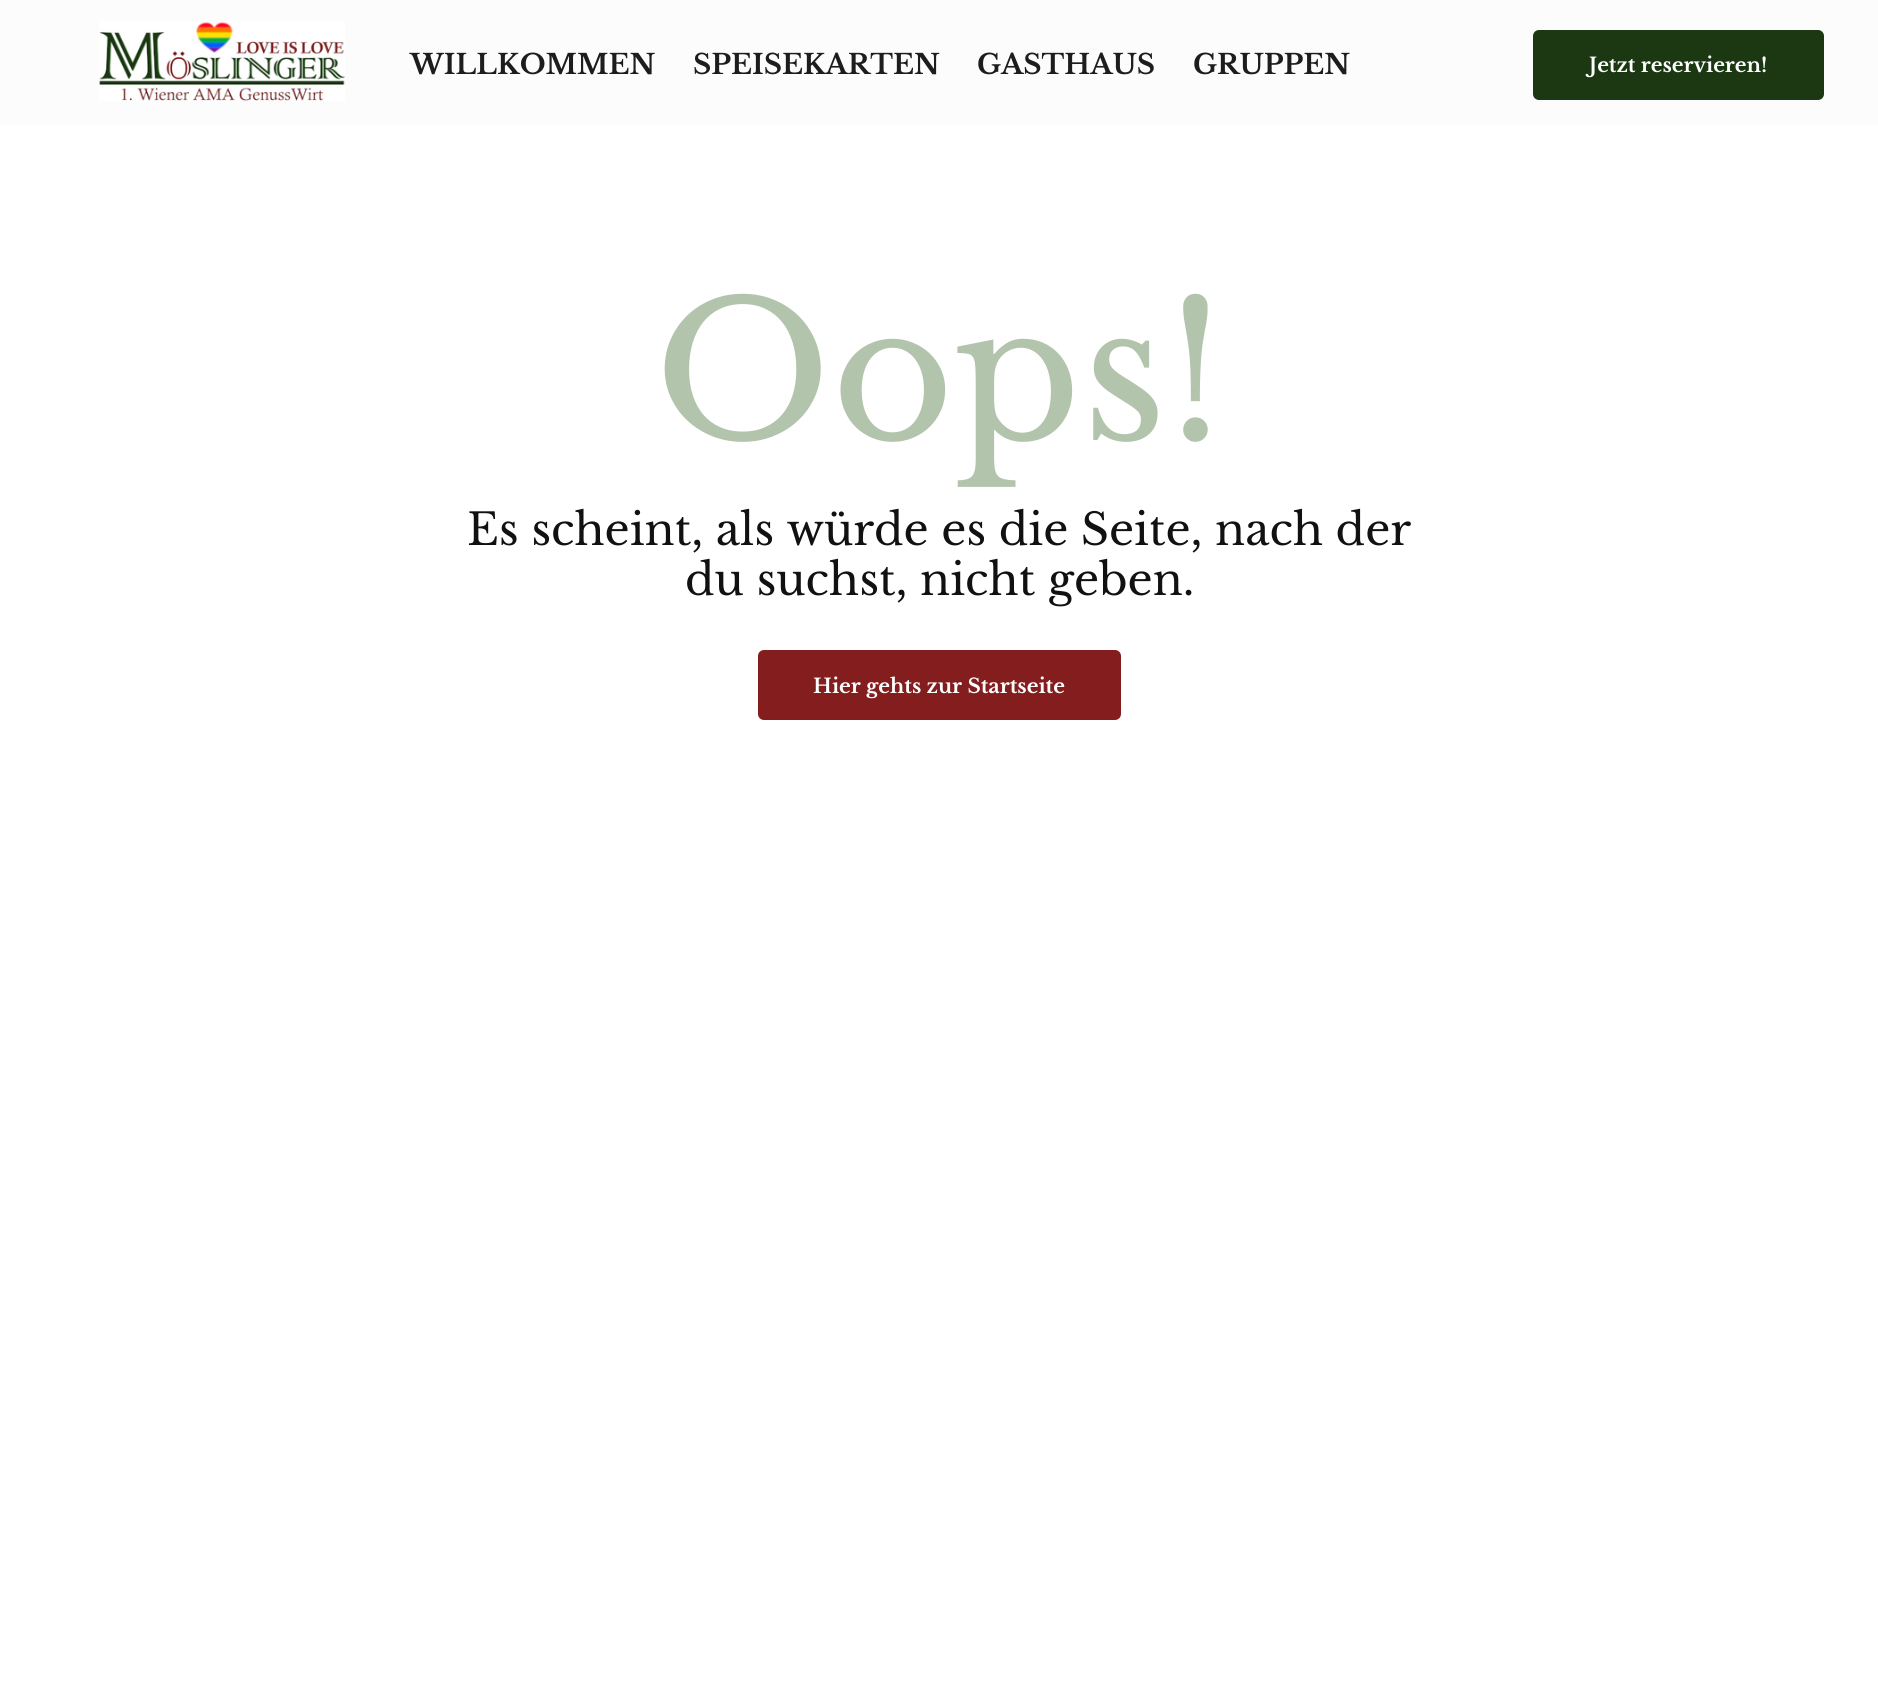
import math
import cairo


def use_color(cr, r, g, b):
  cr.set_source_rgb(r / 255, g / 255, b / 255)

def text(cr, x, y, s, family, size, color, bold=False, italic=False):
  cr.select_font_face(family, cairo.FONT_SLANT_ITALIC if italic else cairo.FONT_SLANT_NORMAL, cairo.FONT_WEIGHT_BOLD if bold else cairo.FONT_WEIGHT_NORMAL)
  cr.set_font_size(size)
  use_color(cr, *color)
  cr.move_to(x, y)
  cr.show_text(s)

def box(cr, x, y, w, h, *color):
  use_color(cr, *color)
  cr.rectangle(x, y, w, h)
  cr.fill()

def round_rect(cr, x, y, w, h, r):
  cr.new_sub_path()
  for i, (u, v) in enumerate([(x + w - r, y + h - r), (x + r, y + h - r), (x + r, y + r), (x + w - r, y + r)]):
    cr.arc(u, v, r, i * math.pi / 2, (i + 1) * math.pi / 2)
  cr.close_path()

def picture(cr, path, x, y, w, h):
  cr.save()
  cr.set_source_surface(cairo.ImageSurface.create_from_png(path), x, y)
  cr.rectangle(x, y, w, h)
  cr.fill()
  cr.restore()

def draw(cr):
  use_color(cr, 255, 255, 255)
  cr.paint()
  box(cr, 0, 0, 1878, 125, 252, 252, 252)
  picture(cr, "img_01.png", 99, 21, 246, 80)
  use_color(cr, 27, 56, 19)
  round_rect(cr, 1533, 30, 291, 70, 6)
  cr.fill()
  use_color(cr, 132, 30, 30)
  round_rect(cr, 758, 650, 363, 70, 6)
  cr.fill()
  text(cr, 410, 74, "WILLKOMMEN", "Libre Baskerville", 27.5, (29, 29, 29), bold=True)
  text(cr, 693, 74, "SPEISEKARTEN", "Libre Baskerville", 27.5, (29, 29, 29), bold=True)
  text(cr, 977, 74, "GASTHAUS", "Libre Baskerville", 27.5, (29, 29, 29), bold=True)
  text(cr, 1193, 74, "GRUPPEN", "Libre Baskerville", 27.5, (29, 29, 29), bold=True)
  text(cr, 1589, 72, "Jetzt reservieren!", "Libre Baskerville", 20, (255, 255, 255), bold=True)
  text(cr, 654, 440, "Oops!", "Libre Baskerville", 187.5, (179, 196, 173))
  text(cr, 467, 545, "Es scheint, als würde es die Seite, nach der", "Libre Baskerville", 43.75, (17, 17, 17))
  text(cr, 685, 595, "du suchst, nicht geben.", "Libre Baskerville", 43.75, (17, 17, 17))
  text(cr, 813, 693, "Hier gehts zur Startseite", "Libre Baskerville", 20, (255, 255, 255), bold=True)


surface = cairo.ImageSurface(cairo.FORMAT_RGB24, 1878, 1692)
cr = cairo.Context(surface)
options = cairo.FontOptions()
options.set_hint_metrics(cairo.HINT_METRICS_OFF)
options.set_hint_style(cairo.HINT_STYLE_NONE)
cr.set_font_options(options)
cr.set_miter_limit(4)
draw(cr)
surface.write_to_png("out.png")
